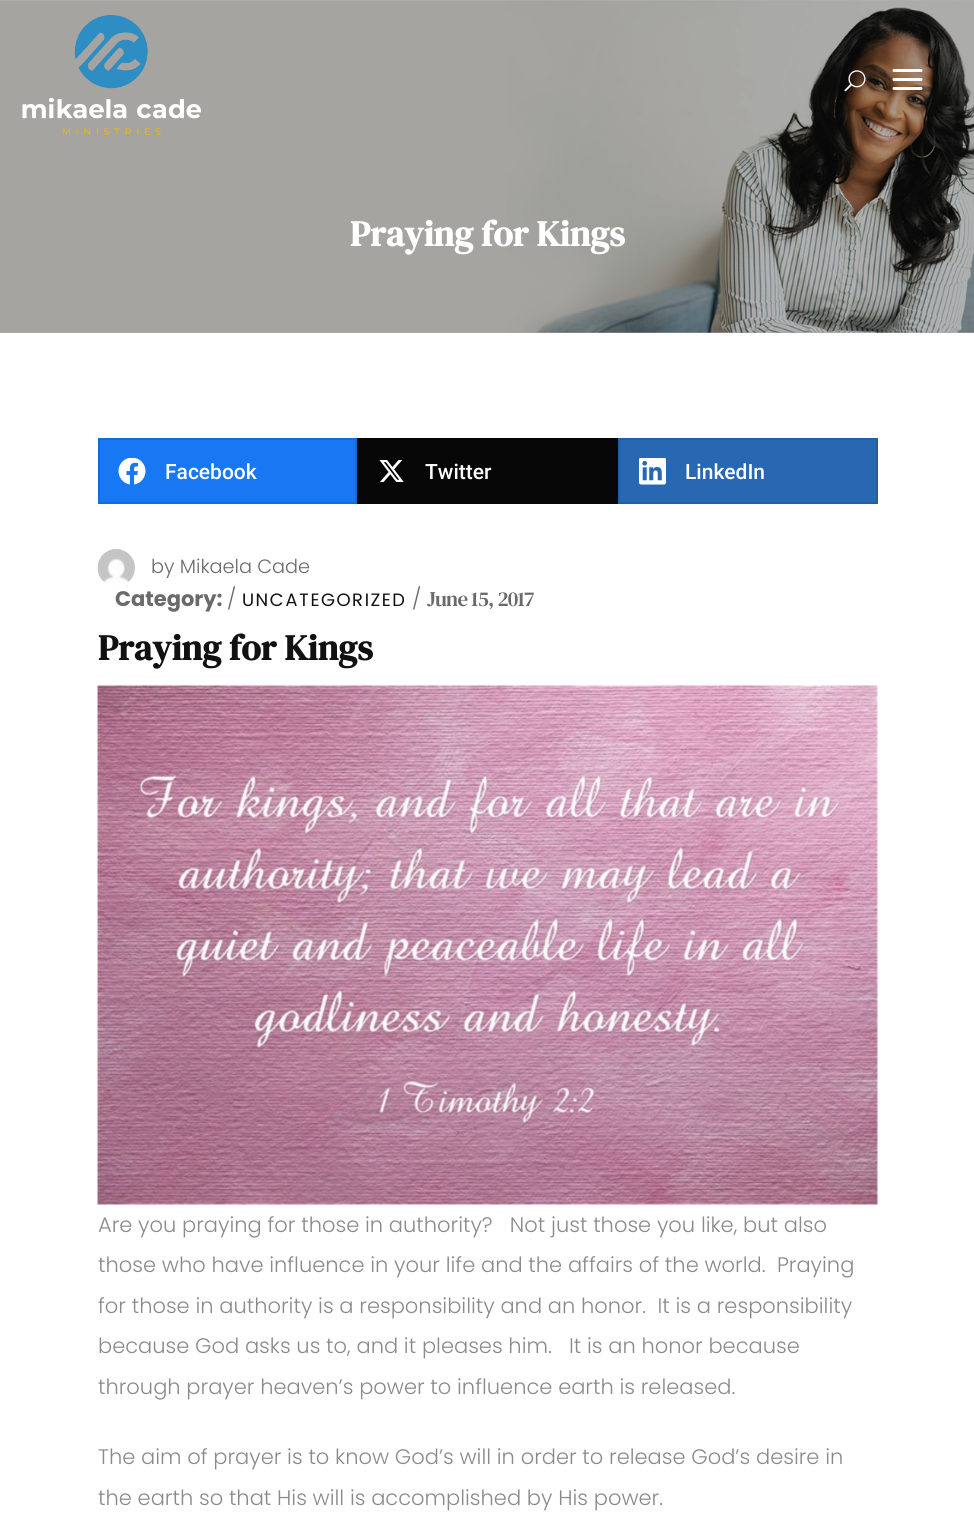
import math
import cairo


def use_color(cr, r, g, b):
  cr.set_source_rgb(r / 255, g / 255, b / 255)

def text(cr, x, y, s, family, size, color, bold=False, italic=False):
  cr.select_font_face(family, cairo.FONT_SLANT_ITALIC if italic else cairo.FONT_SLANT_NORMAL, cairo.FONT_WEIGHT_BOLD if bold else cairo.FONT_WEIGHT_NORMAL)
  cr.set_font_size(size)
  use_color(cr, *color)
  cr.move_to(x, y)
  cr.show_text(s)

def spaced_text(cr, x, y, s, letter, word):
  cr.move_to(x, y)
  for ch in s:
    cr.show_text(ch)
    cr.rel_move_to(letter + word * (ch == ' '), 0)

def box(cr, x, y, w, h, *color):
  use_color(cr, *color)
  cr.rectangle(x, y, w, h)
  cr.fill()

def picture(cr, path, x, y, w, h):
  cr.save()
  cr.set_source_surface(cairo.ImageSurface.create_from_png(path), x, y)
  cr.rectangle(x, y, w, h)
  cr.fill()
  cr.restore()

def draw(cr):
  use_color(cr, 255, 255, 255)
  cr.paint()
  box(cr, 0, 0, 974, 333, 175, 175, 175)
  picture(cr, "img_04.png", 0, 0, 974, 333)
  picture(cr, "img_01.png", 22, 15, 179, 120)
  picture(cr, "img_02.png", 844, 70, 22, 22)
  picture(cr, "img_03.png", 892, 69, 31, 21)
  use_color(cr, 24, 119, 242)
  cr.rectangle(99, 439, 257, 64)
  cr.fill_preserve()
  use_color(cr, 22, 107, 218)
  cr.stroke()
  picture(cr, "img_05.png", 118, 458, 28, 27)
  box(cr, 357, 438, 261, 66, 6, 6, 6)
  picture(cr, "img_06.png", 379, 460, 25, 22)
  use_color(cr, 40, 103, 178)
  cr.rectangle(619, 439, 258, 64)
  cr.fill_preserve()
  use_color(cr, 36, 93, 160)
  cr.stroke()
  picture(cr, "img_07.png", 639, 458, 27, 27)
  picture(cr, "img_08.png", 97, 549, 38, 34)
  picture(cr, "img_09.png", 97, 685, 781, 520)
  text(cr, 350, 246, "Praying for Kings", "DM Serif Text", 36, (255, 255, 255), bold=True)
  text(cr, 165, 479, "Facebook", "Roboto Medium", 21, (255, 255, 255))
  text(cr, 425, 479, "Twitter", "Roboto Medium", 21, (255, 255, 255))
  text(cr, 685, 479, "LinkedIn", "Roboto Medium", 21, (255, 255, 255))
  text(cr, 151, 573, "by Mikaela Cade", "Poppins Light", 19.25, (106, 106, 106))
  text(cr, 115, 606, "Category:", "Poppins", 21, (106, 106, 106), bold=True)
  text(cr, 227, 606, "/", "Poppins Light", 21, (106, 106, 106))
  cr.select_font_face("Poppins")
  cr.set_font_size(18)
  use_color(cr, 17, 17, 17)
  spaced_text(cr, 242, 606, "UNCATEGORIZED", 1.5, 0)
  text(cr, 412, 606, "/", "Poppins Light", 21, (106, 106, 106))
  cr.select_font_face("DM Serif Text")
  spaced_text(cr, 427, 606, "June 15, 2017", -0.75, 0)
  text(cr, 98, 660, "Praying for Kings", "DM Serif Text", 36, (17, 17, 17), bold=True)
  text(cr, 98, 1232, "Are you praying for those in authority?   Not just those you like, but also", "Poppins Light", 21, (138, 138, 138))
  text(cr, 98, 1272, "those who have influence in your life and the affairs of the world.  Praying", "Poppins Light", 21, (138, 138, 138))
  text(cr, 98, 1313, "for those in authority is a responsibility and an honor.  It is a responsibility", "Poppins Light", 21, (138, 138, 138))
  text(cr, 98, 1353, "because God asks us to, and it pleases him.   It is an honor because", "Poppins Light", 21, (138, 138, 138))
  text(cr, 98, 1394, "through prayer heaven’s power to influence earth is released.", "Poppins Light", 21, (138, 138, 138))
  text(cr, 98, 1464, "The aim of prayer is to know God’s will in order to release God’s desire in", "Poppins Light", 21, (138, 138, 138))
  text(cr, 98, 1505, "the earth so that His will is accomplished by His power.", "Poppins Light", 21, (138, 138, 138))


surface = cairo.ImageSurface(cairo.FORMAT_RGB24, 974, 1515)
cr = cairo.Context(surface)
options = cairo.FontOptions()
options.set_hint_metrics(cairo.HINT_METRICS_OFF)
options.set_hint_style(cairo.HINT_STYLE_NONE)
cr.set_font_options(options)
cr.set_miter_limit(4)
draw(cr)
surface.write_to_png("out.png")
